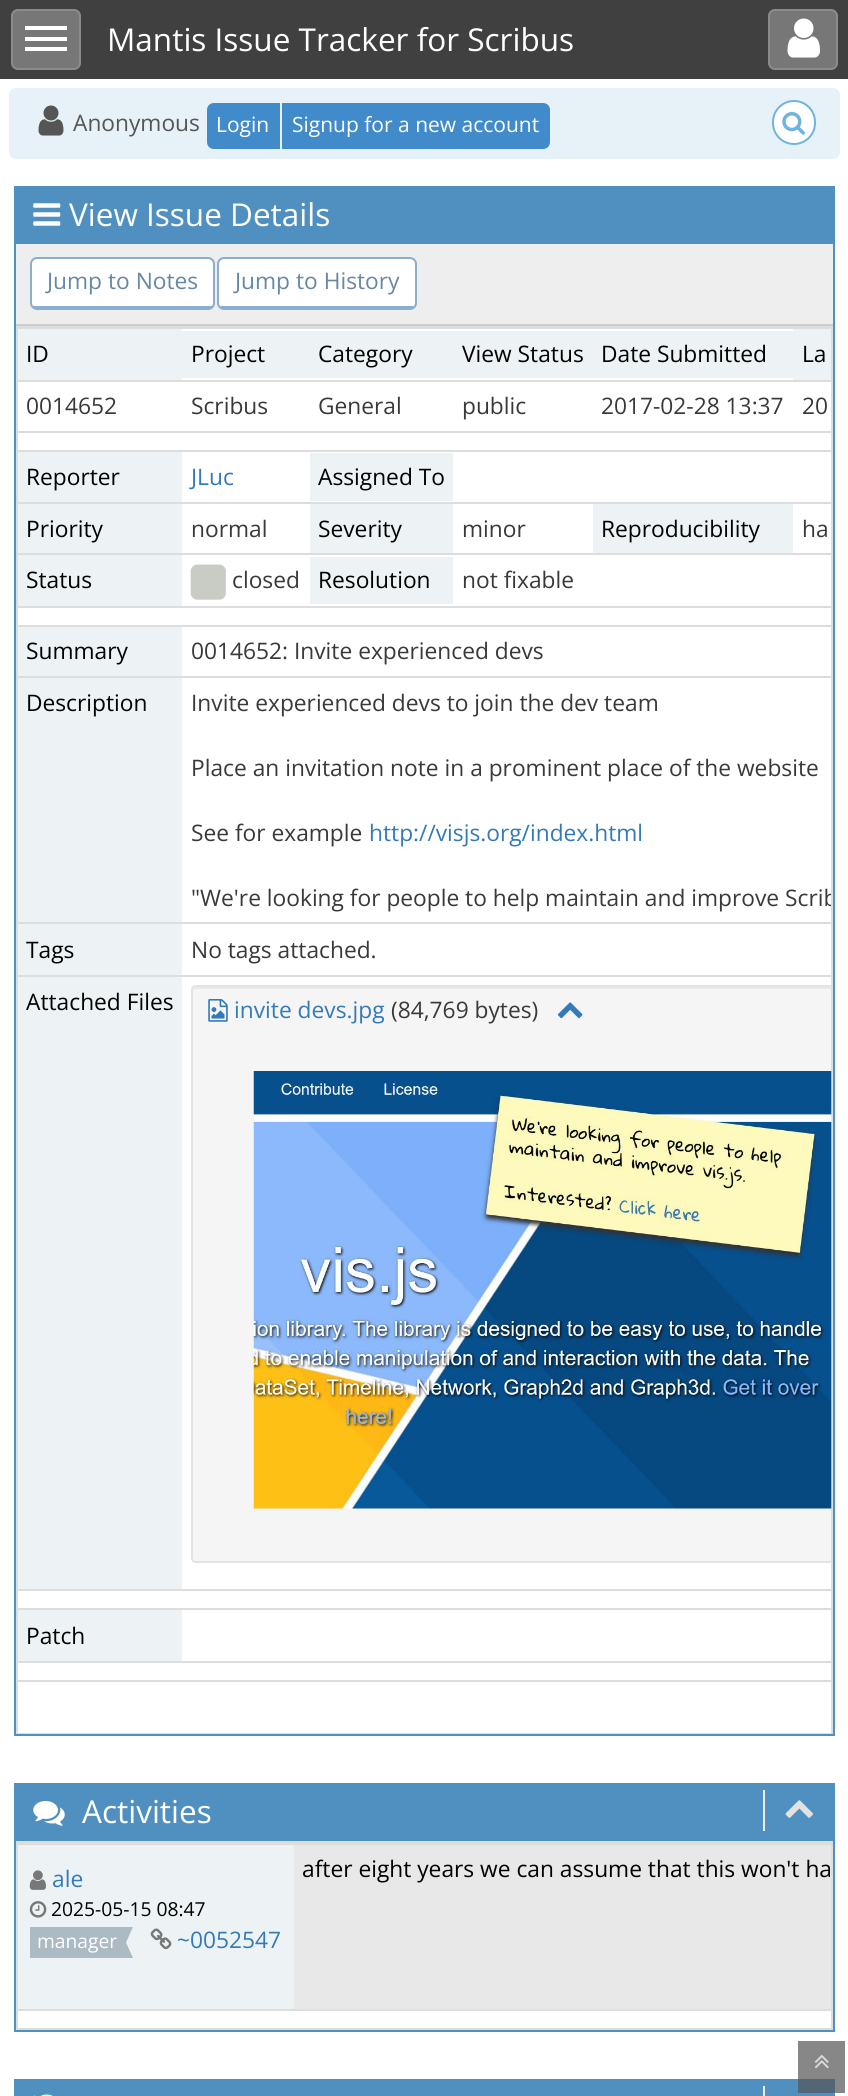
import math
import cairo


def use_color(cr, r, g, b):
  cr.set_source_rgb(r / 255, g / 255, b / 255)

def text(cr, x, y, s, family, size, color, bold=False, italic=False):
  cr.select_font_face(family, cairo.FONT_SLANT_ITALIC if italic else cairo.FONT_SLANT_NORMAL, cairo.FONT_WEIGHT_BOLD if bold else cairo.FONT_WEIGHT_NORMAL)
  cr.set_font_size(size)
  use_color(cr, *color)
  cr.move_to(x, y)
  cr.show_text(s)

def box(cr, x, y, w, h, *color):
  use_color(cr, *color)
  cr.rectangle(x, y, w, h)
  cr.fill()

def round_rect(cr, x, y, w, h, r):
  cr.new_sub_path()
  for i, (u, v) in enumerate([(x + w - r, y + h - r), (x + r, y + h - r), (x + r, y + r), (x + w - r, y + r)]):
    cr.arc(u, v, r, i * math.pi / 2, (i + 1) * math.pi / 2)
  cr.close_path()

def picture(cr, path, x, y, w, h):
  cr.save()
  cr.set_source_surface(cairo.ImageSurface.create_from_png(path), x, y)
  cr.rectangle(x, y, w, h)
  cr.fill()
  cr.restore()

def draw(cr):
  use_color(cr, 255, 255, 255)
  cr.paint()
  box(cr, 0, 0, 848, 79, 64, 64, 64)
  use_color(cr, 119, 119, 119)
  round_rect(cr, 11, 9, 70, 61, 7)
  cr.fill()
  round_rect(cr, 12, 10, 68, 59, 6)
  cr.set_source_rgba(1, 1, 1, 0.15)
  cr.stroke()
  box(cr, 25, 26, 42, 4, 255, 255, 255)
  box(cr, 25, 37, 42, 4, 255, 255, 255)
  box(cr, 25, 47, 42, 4, 255, 255, 255)
  use_color(cr, 119, 119, 119)
  round_rect(cr, 768, 9, 70, 61, 7)
  cr.fill()
  round_rect(cr, 769, 10, 68, 59, 6)
  cr.set_source_rgba(1, 1, 1, 0.15)
  cr.stroke()
  picture(cr, "img_01.png", 787, 18, 33, 40)
  use_color(cr, 231, 242, 248)
  round_rect(cr, 9, 88, 831, 71, 7)
  cr.fill()
  picture(cr, "img_02.png", 38, 105, 26, 31)
  use_color(cr, 66, 139, 202)
  cr.new_path()
  cr.move_to(214, 104)
  cr.line_to(279, 104)
  cr.line_to(279, 148)
  cr.line_to(214, 148)
  cr.curve_to(210.5, 148, 208, 145.5, 208, 142)
  cr.line_to(208, 110)
  cr.curve_to(208, 106.5, 210.5, 104, 214, 104)
  cr.close_path()
  cr.fill_preserve()
  cr.stroke()
  cr.new_path()
  cr.move_to(283, 104)
  cr.line_to(543, 104)
  cr.curve_to(546.5, 104, 549, 106.5, 549, 110)
  cr.line_to(549, 142)
  cr.curve_to(549, 145.5, 546.5, 148, 543, 148)
  cr.line_to(283, 148)
  cr.close_path()
  cr.fill_preserve()
  cr.stroke()
  use_color(cr, 255, 255, 255)
  round_rect(cr, 773, 101, 42, 43, 21)
  cr.fill_preserve()
  use_color(cr, 111, 179, 224)
  cr.stroke()
  picture(cr, "img_03.png", 782, 112, 23, 23)
  cr.rectangle(15, 187, 819, 1548)
  use_color(cr, 80, 144, 193)
  cr.stroke()
  box(cr, 16, 188, 817, 56, 80, 144, 193)
  picture(cr, "img_04.png", 33, 203, 28, 23)
  box(cr, 16, 244, 817, 80, 238, 238, 238)
  box(cr, 16, 324, 817, 2, 204, 204, 204)
  use_color(cr, 255, 255, 255)
  cr.new_path()
  cr.move_to(37, 259)
  cr.line_to(208, 259)
  cr.curve_to(211, 259, 214, 261, 214, 264)
  cr.line_to(214, 303)
  cr.curve_to(214, 305, 211, 306, 208, 306)
  cr.line_to(37, 306)
  cr.curve_to(34, 306, 32, 305, 32, 303)
  cr.line_to(32, 264)
  cr.curve_to(32, 261, 34, 259, 37, 259)
  cr.close_path()
  cr.fill()
  round_rect(cr, 31, 258, 183, 51, 6)
  use_color(cr, 138, 175, 206)
  cr.stroke()
  box(cr, 33, 306, 179, 2, 138, 175, 206)
  use_color(cr, 255, 255, 255)
  cr.new_path()
  cr.move_to(224, 259)
  cr.line_to(410, 259)
  cr.curve_to(412, 259, 415, 261, 415, 264)
  cr.line_to(415, 303)
  cr.curve_to(415, 305, 412, 306, 410, 306)
  cr.line_to(224, 306)
  cr.curve_to(221, 306, 219, 305, 219, 303)
  cr.line_to(219, 264)
  cr.curve_to(219, 261, 221, 259, 224, 259)
  cr.close_path()
  cr.fill()
  round_rect(cr, 218, 258, 198, 51, 6)
  use_color(cr, 138, 175, 206)
  cr.stroke()
  box(cr, 221, 306, 192, 2, 138, 175, 206)
  cr.rectangle(17, 327, 815, 1406)
  use_color(cr, 221, 221, 221)
  cr.stroke()
  box(cr, 18, 1732, 813, 1, 255, 255, 255)
  box(cr, 18, 329, 164, 51, 237, 243, 244)
  box(cr, 182, 331, 611, 47, 237, 243, 244)
  box(cr, 793, 329, 38, 51, 237, 243, 244)
  box(cr, 18, 328, 813, 1, 221, 221, 221)
  box(cr, 18, 380, 813, 2, 221, 221, 221)
  box(cr, 18, 431, 813, 2, 221, 221, 221)
  box(cr, 18, 450, 813, 2, 221, 221, 221)
  box(cr, 18, 452, 164, 50, 237, 243, 244)
  box(cr, 310, 453, 143, 48, 237, 243, 244)
  box(cr, 18, 504, 164, 49, 237, 243, 244)
  box(cr, 310, 504, 143, 49, 237, 243, 244)
  box(cr, 593, 504, 200, 49, 237, 243, 244)
  box(cr, 18, 502, 813, 2, 221, 221, 221)
  box(cr, 18, 553, 813, 2, 221, 221, 221)
  box(cr, 18, 555, 164, 51, 237, 243, 244)
  picture(cr, "img_05.png", 190, 564, 36, 36)
  box(cr, 310, 557, 143, 47, 237, 243, 244)
  box(cr, 18, 606, 813, 2, 221, 221, 221)
  box(cr, 18, 627, 164, 49, 237, 243, 244)
  box(cr, 18, 625, 813, 2, 221, 221, 221)
  box(cr, 18, 678, 164, 244, 237, 243, 244)
  box(cr, 18, 676, 813, 2, 221, 221, 221)
  box(cr, 18, 924, 164, 51, 237, 243, 244)
  box(cr, 18, 922, 813, 2, 221, 221, 221)
  box(cr, 18, 977, 164, 612, 237, 243, 244)
  box(cr, 18, 975, 813, 2, 221, 221, 221)
  use_color(cr, 245, 245, 245)
  cr.new_path()
  cr.move_to(196, 985)
  cr.line_to(831, 985)
  cr.line_to(831, 1563)
  cr.line_to(196, 1563)
  cr.curve_to(193, 1563, 191, 1561, 191, 1558)
  cr.line_to(191, 990)
  cr.curve_to(191, 987, 193, 985, 196, 985)
  cr.close_path()
  cr.fill()
  cr.save()
  cr.rectangle(18, 327, 813, 1406)
  cr.clip()
  use_color(cr, 233, 233, 233)
  cr.new_path()
  cr.move_to(196, 989)
  cr.line_to(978, 989)
  cr.curve_to(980, 989, 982, 990, 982, 992)
  cr.line_to(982, 991)
  cr.curve_to(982, 989, 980, 987, 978, 987)
  cr.line_to(197, 987)
  cr.curve_to(195, 987, 194, 988, 193, 990)
  cr.close_path()
  cr.fill()
  round_rect(cr, 192, 986, 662, 576, 4)
  use_color(cr, 227, 227, 227)
  cr.stroke()
  cr.restore()
  picture(cr, "img_06.png", 208, 999, 20, 23)
  picture(cr, "img_07.png", 557, 1002, 26, 17)
  picture(cr, "img_08.png", 253, 1071, 579, 438)
  box(cr, 18, 1589, 813, 2, 221, 221, 221)
  box(cr, 18, 1608, 813, 2, 221, 221, 221)
  box(cr, 18, 1610, 164, 51, 237, 243, 244)
  box(cr, 18, 1661, 813, 2, 221, 221, 221)
  box(cr, 18, 1680, 813, 2, 221, 221, 221)
  cr.rectangle(15, 1784, 819, 247)
  use_color(cr, 80, 144, 193)
  cr.stroke()
  box(cr, 16, 1785, 817, 56, 80, 144, 193)
  picture(cr, "img_09.png", 33, 1801, 32, 25)
  box(cr, 763, 1790, 2, 41, 238, 238, 238)
  picture(cr, "img_10.png", 785, 1800, 28, 18)
  cr.rectangle(17, 1842, 815, 187)
  use_color(cr, 221, 221, 221)
  cr.stroke()
  box(cr, 18, 1845, 276, 164, 237, 243, 244)
  picture(cr, "img_11.png", 29, 1870, 17, 20)
  picture(cr, "img_12.png", 29, 1901, 18, 17)
  box(cr, 30, 1927, 96, 31, 171, 186, 195)
  cr.new_path()
  cr.move_to(119, 1927)
  cr.line_to(133, 1927)
  cr.line_to(126, 1942.5)
  cr.close_path()
  cr.fill()
  cr.new_path()
  cr.move_to(133, 1958)
  cr.line_to(119, 1958)
  cr.line_to(126, 1942.5)
  cr.close_path()
  cr.fill()
  picture(cr, "img_13.png", 150, 1928, 22, 22)
  box(cr, 294, 1845, 537, 164, 232, 232, 232)
  box(cr, 18, 1843, 813, 2, 221, 221, 221)
  box(cr, 18, 2009, 813, 2, 221, 221, 221)
  cr.rectangle(15, 2080, 819, 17)
  use_color(cr, 80, 144, 193)
  cr.stroke()
  box(cr, 16, 2081, 817, 15, 80, 144, 193)
  picture(cr, "img_14.png", 33, 2094, 20, 2)
  box(cr, 763, 2086, 2, 10, 238, 238, 238)
  cr.set_source_rgba(0.333, 0.333, 0.333, 0.7)
  cr.rectangle(798, 2041, 47, 52)
  cr.fill()
  picture(cr, "img_15.png", 814, 2054, 15, 15)
  text(cr, 107, 51, "Mantis Issue Tracker for Scribus", "Open Sans", 31.5, (255, 255, 255))
  text(cr, 73, 131, "Anonymous", "Open Sans", 22.75, (85, 85, 85))
  text(cr, 216, 132, "Login", "Open Sans", 21, (255, 255, 255))
  text(cr, 292, 132, "Signup for a new account", "Open Sans", 21, (255, 255, 255))
  text(cr, 69, 226, "View Issue Details", "Open Sans", 31.5, (255, 255, 255))
  text(cr, 47, 289, "Jump to Notes", "Open Sans", 22.75, (102, 136, 166))
  text(cr, 235, 289, "Jump to History", "Open Sans", 22.75, (102, 136, 166))
  text(cr, 26, 362, "ID", "Open Sans", 22.75, (0, 0, 0))
  text(cr, 191, 362, "Project", "Open Sans", 22.75, (0, 0, 0))
  text(cr, 318, 362, "Category", "Open Sans", 22.75, (0, 0, 0))
  text(cr, 462, 362, "View Status", "Open Sans", 22.75, (0, 0, 0))
  text(cr, 601, 362, "Date Submitted", "Open Sans", 22.75, (0, 0, 0))
  text(cr, 802, 362, "La", "Open Sans", 22.75, (0, 0, 0))
  text(cr, 26, 414, "0014652", "Open Sans", 22.75, (57, 57, 57))
  text(cr, 191, 414, "Scribus", "Open Sans", 22.75, (57, 57, 57))
  text(cr, 318, 414, "General", "Open Sans", 22.75, (57, 57, 57))
  text(cr, 462, 414, "public", "Open Sans", 22.75, (57, 57, 57))
  text(cr, 601, 414, "2017-02-28 13:37", "Open Sans", 22.75, (57, 57, 57))
  text(cr, 802, 414, "20", "Open Sans", 22.75, (57, 57, 57))
  text(cr, 26, 485, "Reporter", "Open Sans", 22.75, (0, 0, 0))
  text(cr, 191, 485, "JLuc", "Open Sans", 22.75, (51, 122, 183))
  text(cr, 318, 485, "Assigned To", "Open Sans", 22.75, (0, 0, 0))
  text(cr, 26, 537, "Priority", "Open Sans", 22.75, (0, 0, 0))
  text(cr, 191, 537, "normal", "Open Sans", 22.75, (57, 57, 57))
  text(cr, 318, 537, "Severity", "Open Sans", 22.75, (0, 0, 0))
  text(cr, 462, 537, "minor", "Open Sans", 22.75, (57, 57, 57))
  text(cr, 601, 537, "Reproducibility", "Open Sans", 22.75, (0, 0, 0))
  text(cr, 802, 537, "ha", "Open Sans", 22.75, (57, 57, 57))
  text(cr, 26, 588, "Status", "Open Sans", 22.75, (0, 0, 0))
  text(cr, 232, 588, "closed", "Open Sans", 22.75, (57, 57, 57))
  text(cr, 318, 588, "Resolution", "Open Sans", 22.75, (0, 0, 0))
  text(cr, 462, 588, "not fixable", "Open Sans", 22.75, (57, 57, 57))
  text(cr, 26, 659, "Summary", "Open Sans", 22.75, (0, 0, 0))
  text(cr, 191, 659, "0014652: Invite experienced devs", "Open Sans", 22.75, (57, 57, 57))
  text(cr, 26, 711, "Description", "Open Sans", 22.75, (0, 0, 0))
  text(cr, 191, 711, "Invite experienced devs to join the dev team", "Open Sans", 22.75, (57, 57, 57))
  text(cr, 191, 776, "Place an invitation note in a prominent place of the website", "Open Sans", 22.75, (57, 57, 57))
  text(cr, 191, 841, "See for example", "Open Sans", 22.75, (57, 57, 57))
  text(cr, 369, 841, "http://visjs.org/index.html", "Open Sans", 22.75, (51, 122, 183))
  cr.save()
  cr.rectangle(18, 327, 813, 1406)
  cr.clip()
  text(cr, 191, 906, "\"We're looking for people to help maintain and improve Scrib", "Open Sans", 22.75, (57, 57, 57))
  cr.restore()
  text(cr, 26, 958, "Tags", "Open Sans", 22.75, (0, 0, 0))
  text(cr, 191, 958, "No tags attached.", "Open Sans", 22.75, (57, 57, 57))
  text(cr, 26, 1010, "Attached Files", "Open Sans", 22.75, (0, 0, 0))
  text(cr, 234, 1018, "invite devs.jpg", "Open Sans", 22.75, (51, 122, 183))
  text(cr, 391, 1018, "(84,769 bytes)", "Open Sans", 22.75, (57, 57, 57))
  text(cr, 26, 1644, "Patch", "Open Sans", 22.75, (0, 0, 0))
  text(cr, 82, 1823, "Activities", "Open Sans", 31.5, (255, 255, 255))
  text(cr, 52, 1887, "ale", "Open Sans", 22.75, (51, 122, 183))
  text(cr, 51, 1916, "2025-05-15 08:47", "Open Sans", 19.25, (0, 0, 0))
  text(cr, 37, 1948, "manager", "Open Sans", 19.25, (255, 255, 255))
  text(cr, 177, 1948, "~0052547", "Open Sans", 22.75, (51, 122, 183))
  text(cr, 302, 1877, "after eight years we can assume that this won't ha", "Open Sans", 22.75, (0, 0, 0))


surface = cairo.ImageSurface(cairo.FORMAT_RGB24, 848, 2096)
cr = cairo.Context(surface)
options = cairo.FontOptions()
options.set_hint_metrics(cairo.HINT_METRICS_OFF)
options.set_hint_style(cairo.HINT_STYLE_NONE)
cr.set_font_options(options)
cr.set_miter_limit(4)
draw(cr)
surface.write_to_png("out.png")
